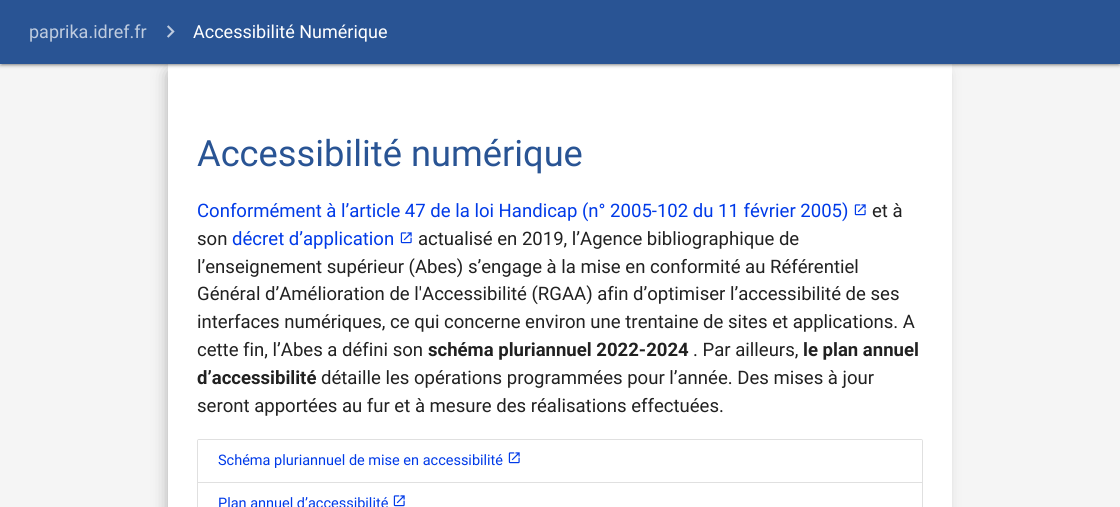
import math
import cairo


def use_color(cr, r, g, b):
  cr.set_source_rgb(r / 255, g / 255, b / 255)

def text(cr, x, y, s, family, size, color, bold=False, italic=False):
  cr.select_font_face(family, cairo.FONT_SLANT_ITALIC if italic else cairo.FONT_SLANT_NORMAL, cairo.FONT_WEIGHT_BOLD if bold else cairo.FONT_WEIGHT_NORMAL)
  cr.set_font_size(size)
  use_color(cr, *color)
  cr.move_to(x, y)
  cr.show_text(s)

def box(cr, x, y, w, h, *color):
  use_color(cr, *color)
  cr.rectangle(x, y, w, h)
  cr.fill()

def round_rect(cr, x, y, w, h, r):
  cr.new_sub_path()
  for i, (u, v) in enumerate([(x + w - r, y + h - r), (x + r, y + h - r), (x + r, y + r), (x + w - r, y + r)]):
    cr.arc(u, v, r, i * math.pi / 2, (i + 1) * math.pi / 2)
  cr.close_path()

def shadow(cr, x, y, w, h, r, blur, alpha):
  cr.push_group_with_content(cairo.CONTENT_ALPHA)
  cr.set_operator(cairo.OPERATOR_SOURCE)
  for i in range(15, -16, -2):
    e = blur * i / 6
    if min(w, h) + 2 * e > 0:
      cr.set_source_rgba(0, 0, 0, alpha * math.erfc((i - 1) / 8.5) / 2)
      round_rect(cr, x - e, y - e, w + 2 * e, h + 2 * e, max(0, min(r + e + blur * .6, min(w, h) / 2 + e)))
      cr.fill()
  cr.mask(cr.pop_group())

def picture(cr, path, x, y, w, h):
  cr.save()
  cr.set_source_surface(cairo.ImageSurface.create_from_png(path), x, y)
  cr.rectangle(x, y, w, h)
  cr.fill()
  cr.restore()

def draw(cr):
  use_color(cr, 245, 245, 245)
  cr.paint()
  use_color(cr, 0, 0, 0)
  shadow(cr, 172, 74, 768, 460, 0, 9, 0.47)
  box(cr, 168, 64, 784, 443, 255, 255, 255)
  use_color(cr, 0, 0, 0)
  shadow(cr, 0, 1, 1120, 64, 0, 2.5, 0.2)
  shadow(cr, 2, 5, 1116, 60, 0, 0.5, 0.12)
  shadow(cr, 0, 2, 1120, 64, 0, 1, 0.14)
  box(cr, 0, 0, 1120, 64, 41, 84, 148)
  picture(cr, "img_01.png", 167, 25, 8, 13)
  picture(cr, "img_02.png", 854, 204, 12, 12)
  picture(cr, "img_02.png", 400, 232, 12, 12)
  round_rect(cr, 197.5, 439.5, 725, 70, 1.5)
  use_color(cr, 224, 224, 224)
  cr.set_line_width(1)
  cr.stroke()
  use_color(cr, 255, 255, 255)
  cr.new_path()
  cr.move_to(199, 440)
  cr.line_to(921, 440)
  cr.curve_to(921.5, 440, 922, 440.5, 922, 441)
  cr.line_to(922, 483)
  cr.line_to(198, 483)
  cr.line_to(198, 441)
  cr.curve_to(198, 440.5, 198.5, 440, 199, 440)
  cr.close_path()
  cr.fill()
  box(cr, 198, 482, 724, 1, 224, 224, 224)
  picture(cr, "img_02.png", 508, 452, 12, 12)
  picture(cr, "img_02.png", 393, 495, 12, 12)
  text(cr, 29, 38, "paprika.idref.fr", "Roboto", 18, (191, 204, 223))
  text(cr, 193, 38, "Accessibilité Numérique", "Roboto", 18, (255, 255, 255))
  text(cr, 197, 166, "Accessibilité numérique", "Roboto", 36.25, (41, 84, 148))
  text(cr, 197, 217, "Conformément à l’article 47 de la loi Handicap (n° 2005-102 du 11 février 2005)", "Roboto", 18.55, (0, 58, 232))
  text(cr, 872, 217, "et à", "Roboto", 18.55, (33, 33, 33))
  text(cr, 197, 245, "son", "Roboto", 18.55, (33, 33, 33))
  text(cr, 232, 245, "décret d’application", "Roboto", 18.55, (0, 58, 232))
  text(cr, 418, 245, "actualisé en 2019, l’Agence bibliographique de", "Roboto", 18.55, (33, 33, 33))
  text(cr, 197, 273, "l’enseignement supérieur (Abes) s’engage à la mise en conformité au Référentiel", "Roboto", 18.55, (33, 33, 33))
  text(cr, 197, 300, "Général d’Amélioration de l'Accessibilité (RGAA) afin d’optimiser l’accessibilité de ses", "Roboto", 18.55, (33, 33, 33))
  text(cr, 197, 328, "interfaces numériques, ce qui concerne environ une trentaine de sites et applications. A", "Roboto", 18.55, (33, 33, 33))
  text(cr, 197, 356, "cette fin, l’Abes a défini son", "Roboto", 18.55, (33, 33, 33))
  text(cr, 428, 356, "schéma pluriannuel 2022-2024", "Roboto", 18.55, (33, 33, 33), bold=True)
  text(cr, 693, 356, ". Par ailleurs,", "Roboto", 18.55, (33, 33, 33))
  text(cr, 803, 356, "le plan annuel", "Roboto", 18.55, (33, 33, 33), bold=True)
  text(cr, 197, 384, "d’accessibilité", "Roboto", 18.55, (33, 33, 33), bold=True)
  text(cr, 321, 384, "détaille les opérations programmées pour l’année. Des mises à jour", "Roboto", 18.55, (33, 33, 33))
  text(cr, 197, 412, "seront apportées au fur et à mesure des réalisations effectuées.", "Roboto", 18.55, (33, 33, 33))
  text(cr, 218, 465, "Schéma pluriannuel de mise en accessibilité", "Roboto", 14.5, (0, 58, 232))
  text(cr, 218, 508, "Plan annuel d’accessibilité", "Roboto", 14.5, (0, 58, 232))


surface = cairo.ImageSurface(cairo.FORMAT_RGB24, 1120, 507)
cr = cairo.Context(surface)
options = cairo.FontOptions()
options.set_hint_metrics(cairo.HINT_METRICS_OFF)
options.set_hint_style(cairo.HINT_STYLE_NONE)
cr.set_font_options(options)
cr.set_miter_limit(4)
draw(cr)
surface.write_to_png("out.png")
